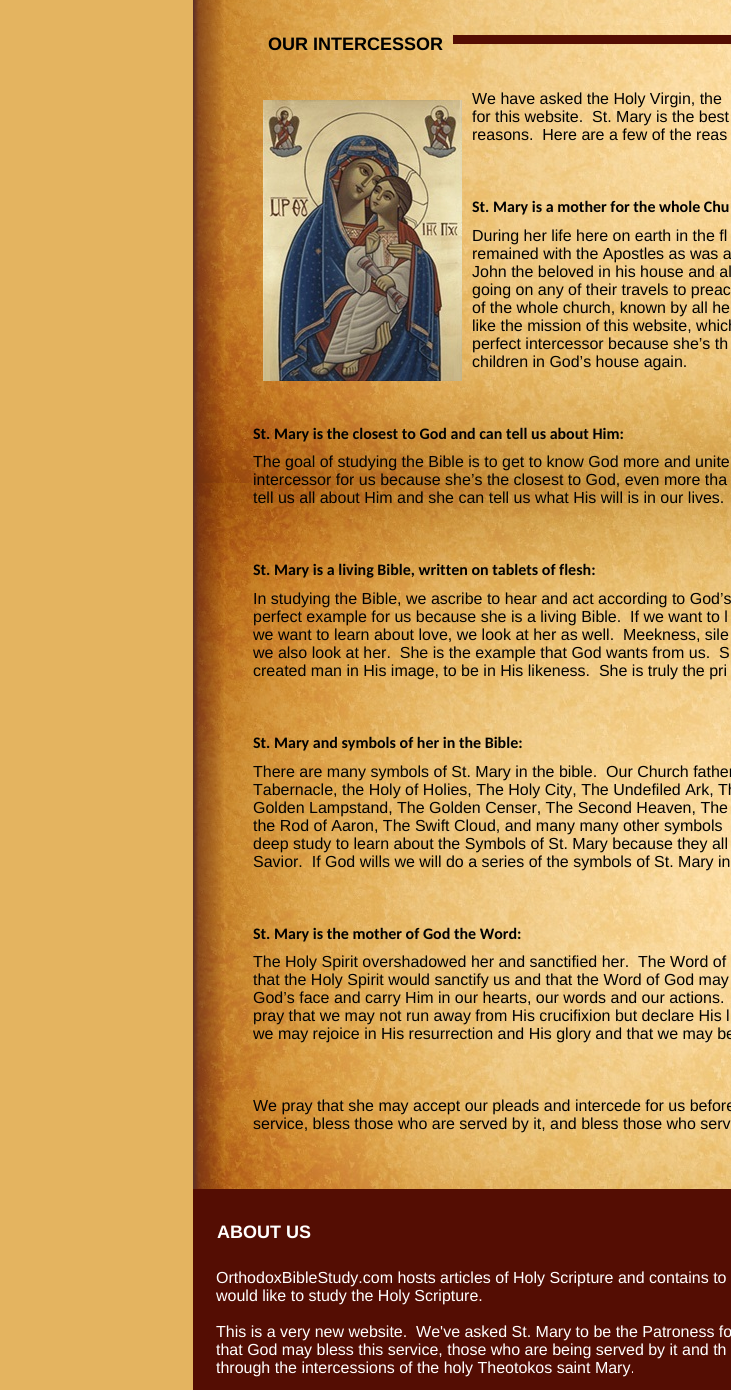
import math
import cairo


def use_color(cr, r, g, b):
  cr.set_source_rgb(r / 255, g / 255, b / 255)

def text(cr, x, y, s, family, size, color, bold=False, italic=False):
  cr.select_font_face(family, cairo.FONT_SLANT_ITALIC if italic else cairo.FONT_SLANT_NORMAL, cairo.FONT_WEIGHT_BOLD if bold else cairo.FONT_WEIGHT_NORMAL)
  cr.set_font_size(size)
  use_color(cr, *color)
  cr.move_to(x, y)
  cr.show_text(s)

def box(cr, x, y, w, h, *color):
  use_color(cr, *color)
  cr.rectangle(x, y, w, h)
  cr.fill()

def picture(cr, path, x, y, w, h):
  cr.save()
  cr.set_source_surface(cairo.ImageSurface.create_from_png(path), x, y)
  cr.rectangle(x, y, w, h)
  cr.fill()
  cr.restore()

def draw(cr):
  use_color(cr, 228, 180, 96)
  cr.paint()
  picture(cr, "img_01.png", 193, 0, 538, 1189)
  picture(cr, "img_02.png", 193, 0, 31, 1189)
  box(cr, 453, 35, 278, 9, 84, 13, 3)
  picture(cr, "img_03.png", 263, 100, 199, 281)
  box(cr, 193, 1189, 538, 201, 84, 13, 3)
  text(cr, 268, 50, "OUR INTERCESSOR", "Liberation Sans", 18, (0, 0, 0), bold=True)
  text(cr, 472, 104, "We have asked the Holy Virgin, the", "Liberation Sans", 16, (0, 0, 0))
  text(cr, 472, 122, "for this website.  St. Mary is the best", "Liberation Sans", 16, (0, 0, 0))
  text(cr, 472, 140, "reasons.  Here are a few of the reas", "Liberation Sans", 16, (0, 0, 0))
  text(cr, 472, 212, "St. Mary is a mother for the whole Chu", "Carlito", 16, (0, 0, 0), bold=True)
  text(cr, 472, 241, "During her life here on earth in the fl", "Liberation Sans", 16, (0, 0, 0))
  text(cr, 472, 259, "remained with the Apostles as was a", "Liberation Sans", 16, (0, 0, 0))
  text(cr, 472, 277, "John the beloved in his house and al", "Liberation Sans", 16, (0, 0, 0))
  text(cr, 472, 295, "going on any of their travels to preac", "Liberation Sans", 16, (0, 0, 0))
  text(cr, 472, 313, "of the whole church, known by all he", "Liberation Sans", 16, (0, 0, 0))
  text(cr, 472, 331, "like the mission of this website, which", "Liberation Sans", 16, (0, 0, 0))
  text(cr, 472, 349, "perfect intercessor because she’s th", "Liberation Sans", 16, (0, 0, 0))
  text(cr, 472, 367, "children in God’s house again.", "Liberation Sans", 16, (0, 0, 0))
  text(cr, 253, 439, "St. Mary is the closest to God and can tell us about Him:", "Carlito", 16, (0, 0, 0), bold=True)
  text(cr, 253, 467, "The goal of studying the Bible is to get to know God more and unite", "Liberation Sans", 16, (0, 0, 0))
  text(cr, 253, 485, "intercessor for us because she’s the closest to God, even more tha", "Liberation Sans", 16, (0, 0, 0))
  text(cr, 253, 503, "tell us all about Him and she can tell us what His will is in our lives.", "Liberation Sans", 16, (0, 0, 0))
  text(cr, 253, 575, "St. Mary is a living Bible, written on tablets of flesh:", "Carlito", 16, (0, 0, 0), bold=True)
  text(cr, 253, 604, "In studying the Bible, we ascribe to hear and act according to God’s", "Liberation Sans", 16, (0, 0, 0))
  text(cr, 253, 622, "perfect example for us because she is a living Bible.  If we want to l", "Liberation Sans", 16, (0, 0, 0))
  text(cr, 253, 640, "we want to learn about love, we look at her as well.  Meekness, sile", "Liberation Sans", 16, (0, 0, 0))
  text(cr, 253, 658, "we also look at her.  She is the example that God wants from us.  S", "Liberation Sans", 16, (0, 0, 0))
  text(cr, 253, 676, "created man in His image, to be in His likeness.  She is truly the pri", "Liberation Sans", 16, (0, 0, 0))
  text(cr, 253, 748, "St. Mary and symbols of her in the Bible:", "Carlito", 16, (0, 0, 0), bold=True)
  text(cr, 253, 777, "There are many symbols of St. Mary in the bible.  Our Church father", "Liberation Sans", 16, (0, 0, 0))
  text(cr, 253, 795, "Tabernacle, the Holy of Holies, The Holy City, The Undefiled Ark, Th", "Liberation Sans", 16, (0, 0, 0))
  text(cr, 253, 813, "Golden Lampstand, The Golden Censer, The Second Heaven, The", "Liberation Sans", 16, (0, 0, 0))
  text(cr, 253, 831, "the Rod of Aaron, The Swift Cloud, and many many other symbols", "Liberation Sans", 16, (0, 0, 0))
  text(cr, 253, 849, "deep study to learn about the Symbols of St. Mary because they all", "Liberation Sans", 16, (0, 0, 0))
  text(cr, 253, 867, "Savior.  If God wills we will do a series of the symbols of St. Mary in", "Liberation Sans", 16, (0, 0, 0))
  text(cr, 253, 939, "St. Mary is the mother of God the Word:", "Carlito", 16, (0, 0, 0), bold=True)
  text(cr, 253, 967, "The Holy Spirit overshadowed her and sanctified her.  The Word of", "Liberation Sans", 16, (0, 0, 0))
  text(cr, 253, 985, "that the Holy Spirit would sanctify us and that the Word of God may", "Liberation Sans", 16, (0, 0, 0))
  text(cr, 253, 1003, "God’s face and carry Him in our hearts, our words and our actions.", "Liberation Sans", 16, (0, 0, 0))
  text(cr, 253, 1021, "pray that we may not run away from His crucifixion but declare His l", "Liberation Sans", 16, (0, 0, 0))
  text(cr, 253, 1039, "we may rejoice in His resurrection and His glory and that we may be", "Liberation Sans", 16, (0, 0, 0))
  text(cr, 253, 1111, "We pray that she may accept our pleads and intercede for us before", "Liberation Sans", 16, (0, 0, 0))
  text(cr, 253, 1129, "service, bless those who are served by it, and bless those who serv", "Liberation Sans", 16, (0, 0, 0))
  text(cr, 217, 1238, "ABOUT US", "Liberation Sans", 18, (255, 255, 255), bold=True)
  text(cr, 216, 1283, "OrthodoxBibleStudy.com hosts articles of Holy Scripture and contains to", "Liberation Sans", 16, (255, 255, 255))
  text(cr, 216, 1301, "would like to study the Holy Scripture.", "Liberation Sans", 16, (255, 255, 255))
  text(cr, 216, 1337, "This is a very new website.  We've asked St. Mary to be the Patroness fo", "Liberation Sans", 16, (255, 255, 255))
  text(cr, 216, 1355, "that God may bless this service, those who are being served by it and th", "Liberation Sans", 16, (255, 255, 255))
  text(cr, 216, 1373, "through the intercessions of the holy Theotokos saint Mary.", "Liberation Sans", 16, (255, 255, 255))


surface = cairo.ImageSurface(cairo.FORMAT_RGB24, 731, 1390)
cr = cairo.Context(surface)
options = cairo.FontOptions()
options.set_hint_metrics(cairo.HINT_METRICS_OFF)
options.set_hint_style(cairo.HINT_STYLE_NONE)
cr.set_font_options(options)
cr.set_miter_limit(4)
draw(cr)
surface.write_to_png("out.png")
